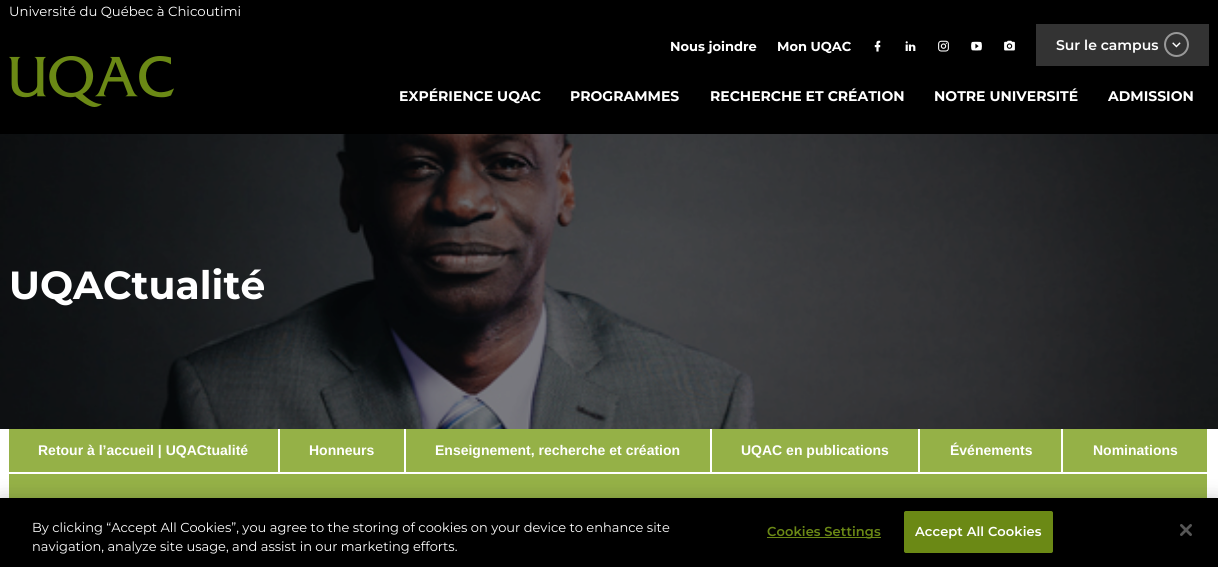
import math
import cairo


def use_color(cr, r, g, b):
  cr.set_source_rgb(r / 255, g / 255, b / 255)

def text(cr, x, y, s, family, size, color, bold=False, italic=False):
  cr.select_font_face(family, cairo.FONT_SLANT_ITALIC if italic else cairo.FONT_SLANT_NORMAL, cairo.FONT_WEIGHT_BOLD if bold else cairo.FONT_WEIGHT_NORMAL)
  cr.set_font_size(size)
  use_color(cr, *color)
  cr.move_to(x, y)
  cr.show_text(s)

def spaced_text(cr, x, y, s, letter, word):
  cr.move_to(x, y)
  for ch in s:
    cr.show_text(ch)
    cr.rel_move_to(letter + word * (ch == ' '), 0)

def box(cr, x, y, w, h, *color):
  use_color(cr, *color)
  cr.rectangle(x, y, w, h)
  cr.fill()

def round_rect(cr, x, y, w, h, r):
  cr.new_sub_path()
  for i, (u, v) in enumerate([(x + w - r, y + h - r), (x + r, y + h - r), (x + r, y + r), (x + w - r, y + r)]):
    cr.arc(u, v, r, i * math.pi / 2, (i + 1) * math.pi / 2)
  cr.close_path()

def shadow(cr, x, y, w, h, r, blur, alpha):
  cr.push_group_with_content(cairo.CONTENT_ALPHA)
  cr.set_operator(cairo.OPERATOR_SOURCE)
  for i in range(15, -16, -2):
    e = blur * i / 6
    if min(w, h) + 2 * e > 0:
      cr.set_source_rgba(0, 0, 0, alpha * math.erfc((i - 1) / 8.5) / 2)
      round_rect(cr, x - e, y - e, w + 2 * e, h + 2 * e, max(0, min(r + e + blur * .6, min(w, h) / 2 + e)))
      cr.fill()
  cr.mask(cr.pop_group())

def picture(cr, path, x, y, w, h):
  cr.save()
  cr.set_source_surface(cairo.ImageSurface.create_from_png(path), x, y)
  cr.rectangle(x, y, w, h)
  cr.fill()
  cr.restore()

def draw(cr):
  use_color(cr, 255, 255, 255)
  cr.paint()
  box(cr, 0, 0, 1218, 134, 0, 0, 0)
  picture(cr, "img_01.png", 874, 40, 7, 12)
  picture(cr, "img_02.png", 905, 41, 11, 10)
  picture(cr, "img_03.png", 938, 40, 11, 12)
  picture(cr, "img_04.png", 971, 41, 11, 10)
  picture(cr, "img_05.png", 1004, 40, 11, 11)
  box(cr, 1036, 24, 173, 42, 51, 51, 51)
  cr.arc(1176.5, 44.5, 11.5, 0, 2 * math.pi)
  use_color(cr, 153, 153, 153)
  cr.stroke()
  picture(cr, "img_06.png", 1172, 42, 9, 6)
  picture(cr, "img_07.png", 9, 56, 165, 51)
  picture(cr, "img_08.png", 0, 134, 1218, 295)
  box(cr, 9, 429, 269, 43, 149, 177, 71)
  box(cr, 280, 429, 124, 43, 149, 177, 71)
  box(cr, 406, 429, 304, 43, 149, 177, 71)
  box(cr, 712, 429, 206, 43, 149, 177, 71)
  box(cr, 920, 429, 141, 43, 149, 177, 71)
  box(cr, 1063, 429, 144, 43, 149, 177, 71)
  box(cr, 9, 474, 1198, 24, 149, 177, 71)
  use_color(cr, 0, 0, 0)
  shadow(cr, 0, 498, 1218, 69, 0, 9, 0.2)
  box(cr, 0, 498, 1218, 69, 0, 0, 0)
  box(cr, 767, 537, 114, 1, 107, 137, 21)
  round_rect(cr, 904.5, 511.5, 148, 41, 1.5)
  cr.fill_preserve()
  cr.set_line_width(1)
  cr.stroke()
  picture(cr, "img_09.png", 1180, 524, 12, 12)
  text(cr, 9, 16, "Université du Québec à Chicoutimi", "Montserrat", 13.25, (255, 255, 255))
  text(cr, 670, 51, "Nous joindre", "Montserrat", 13, (255, 255, 255), bold=True)
  text(cr, 777, 51, "Mon UQAC", "Montserrat", 13, (255, 255, 255), bold=True)
  text(cr, 1056, 50, "Sur le campus", "Montserrat SemiBold", 14, (255, 255, 255))
  text(cr, 399, 101, "EXPÉRIENCE UQAC", "Montserrat", 14, (255, 255, 255), bold=True)
  text(cr, 570, 101, "PROGRAMMES", "Montserrat", 14, (255, 255, 255), bold=True)
  text(cr, 710, 101, "RECHERCHE ET CRÉATION", "Montserrat", 14, (255, 255, 255), bold=True)
  text(cr, 934, 101, "NOTRE UNIVERSITÉ", "Montserrat", 14, (255, 255, 255), bold=True)
  text(cr, 1108, 101, "ADMISSION", "Montserrat", 14, (255, 255, 255), bold=True)
  text(cr, 9, 299, "UQACtualité", "Montserrat", 39.25, (255, 255, 255), bold=True)
  text(cr, 38, 455, "Retour à l’accueil | UQACtualité", "Liberation Sans", 14, (255, 255, 255), bold=True)
  text(cr, 309, 455, "Honneurs", "Liberation Sans", 14, (255, 255, 255), bold=True)
  text(cr, 435, 455, "Enseignement, recherche et création", "Liberation Sans", 14, (255, 255, 255), bold=True)
  text(cr, 741, 455, "UQAC en publications", "Liberation Sans", 14, (255, 255, 255), bold=True)
  text(cr, 950, 455, "Événements", "Liberation Sans", 14, (255, 255, 255), bold=True)
  text(cr, 1093, 455, "Nominations", "Liberation Sans", 14, (255, 255, 255), bold=True)
  text(cr, 32, 532, "By clicking “Accept All Cookies”, you agree to the storing of cookies on your device to enhance site", "Montserrat", 13, (255, 255, 255))
  text(cr, 32, 551, "navigation, analyze site usage, and assist in our marketing efforts.", "Montserrat", 13, (255, 255, 255))
  cr.select_font_face("Montserrat SemiBold")
  use_color(cr, 107, 137, 21)
  spaced_text(cr, 767, 536, "Cookies Settings", 0.1, 0)
  use_color(cr, 255, 255, 255)
  spaced_text(cr, 915, 536, "Accept All Cookies", 0.1, 0)


surface = cairo.ImageSurface(cairo.FORMAT_RGB24, 1218, 567)
cr = cairo.Context(surface)
options = cairo.FontOptions()
options.set_hint_metrics(cairo.HINT_METRICS_OFF)
options.set_hint_style(cairo.HINT_STYLE_NONE)
cr.set_font_options(options)
cr.set_miter_limit(4)
draw(cr)
surface.write_to_png("out.png")
